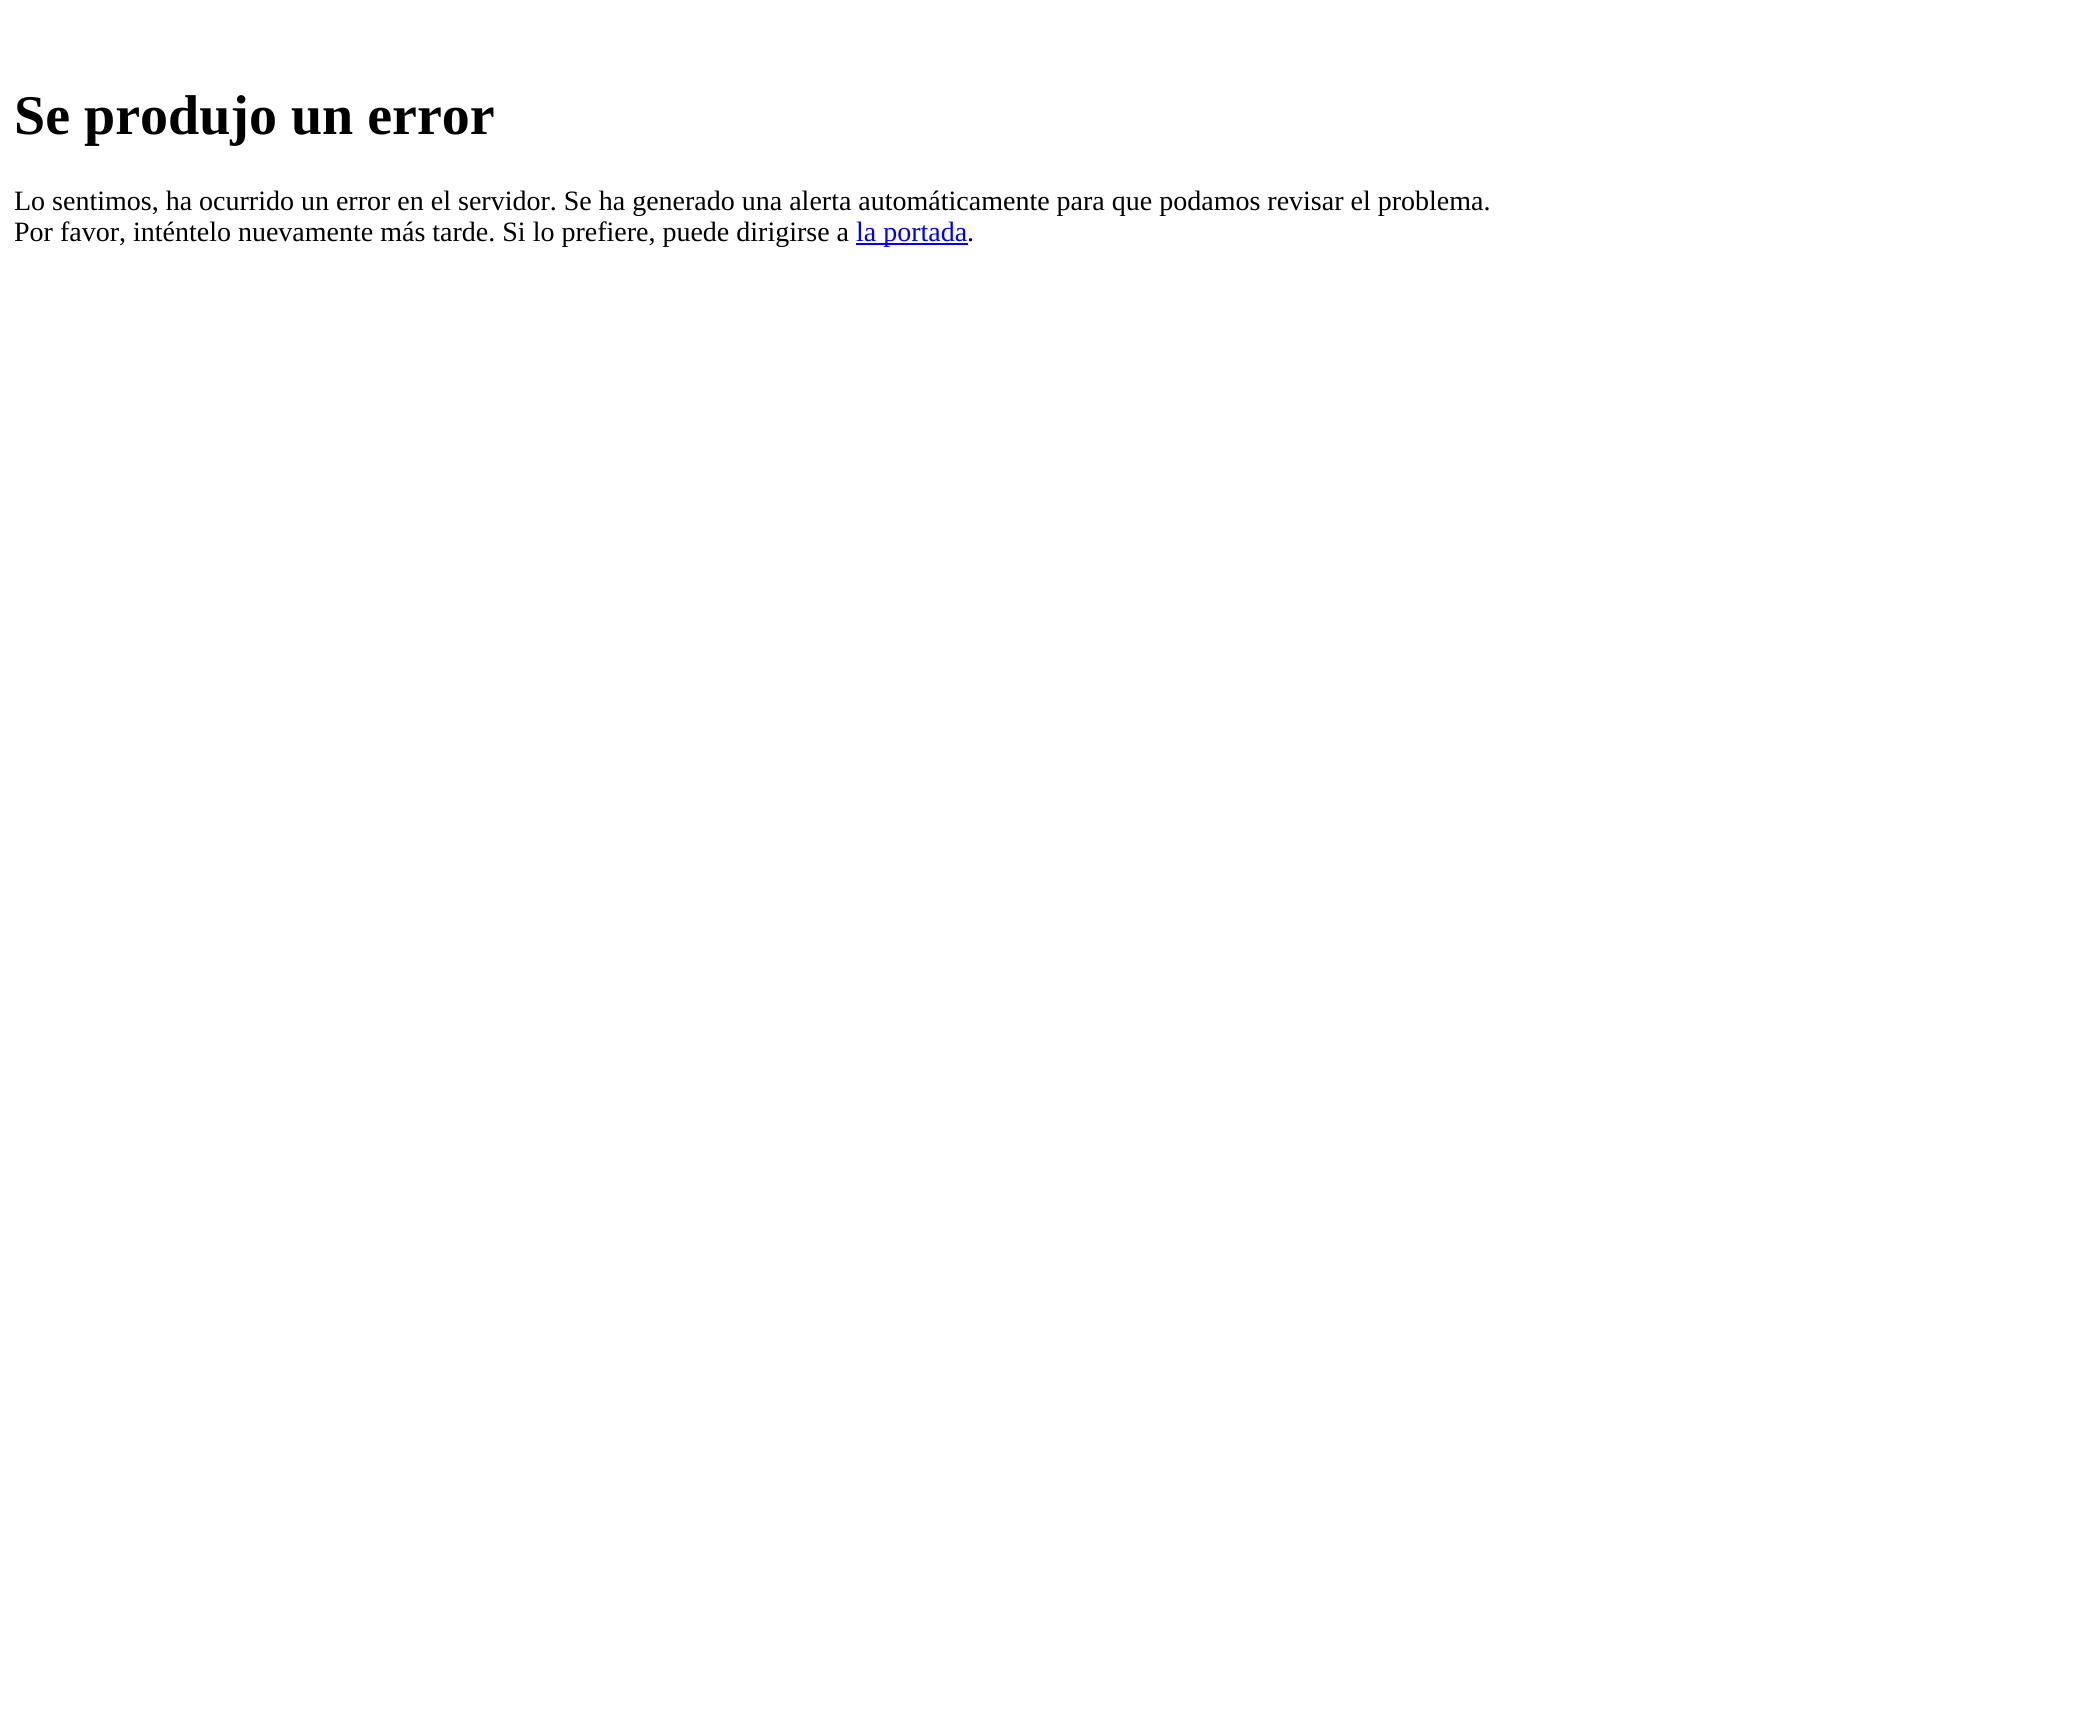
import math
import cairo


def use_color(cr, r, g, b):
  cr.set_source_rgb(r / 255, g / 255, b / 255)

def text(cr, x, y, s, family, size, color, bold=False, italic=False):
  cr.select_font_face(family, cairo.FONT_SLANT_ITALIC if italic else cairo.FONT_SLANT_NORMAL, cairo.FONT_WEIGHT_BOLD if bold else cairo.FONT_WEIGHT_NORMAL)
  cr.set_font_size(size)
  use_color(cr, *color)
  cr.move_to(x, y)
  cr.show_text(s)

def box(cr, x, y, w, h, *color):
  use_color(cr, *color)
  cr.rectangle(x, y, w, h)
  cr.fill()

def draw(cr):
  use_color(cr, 255, 255, 255)
  cr.paint()
  box(cr, 856, 243, 112, 2, 0, 0, 238)
  text(cr, 14, 134, "Se produjo un error", "Liberation Serif", 56, (0, 0, 0), bold=True)
  text(cr, 14, 210, "Lo sentimos, ha ocurrido un error en el servidor. Se ha generado una alerta automáticamente para que podamos revisar el problema.", "Liberation Serif", 28, (0, 0, 0))
  text(cr, 14, 241, "Por favor, inténtelo nuevamente más tarde. Si lo prefiere, puede dirigirse a", "Liberation Serif", 28, (0, 0, 0))
  text(cr, 856, 241, "la portada", "Liberation Serif", 28, (0, 0, 238))
  text(cr, 967, 241, ".", "Liberation Serif", 28, (0, 0, 0))


surface = cairo.ImageSurface(cairo.FORMAT_RGB24, 2077, 1723)
cr = cairo.Context(surface)
options = cairo.FontOptions()
options.set_hint_metrics(cairo.HINT_METRICS_OFF)
options.set_hint_style(cairo.HINT_STYLE_NONE)
cr.set_font_options(options)
cr.set_miter_limit(4)
draw(cr)
surface.write_to_png("out.png")
